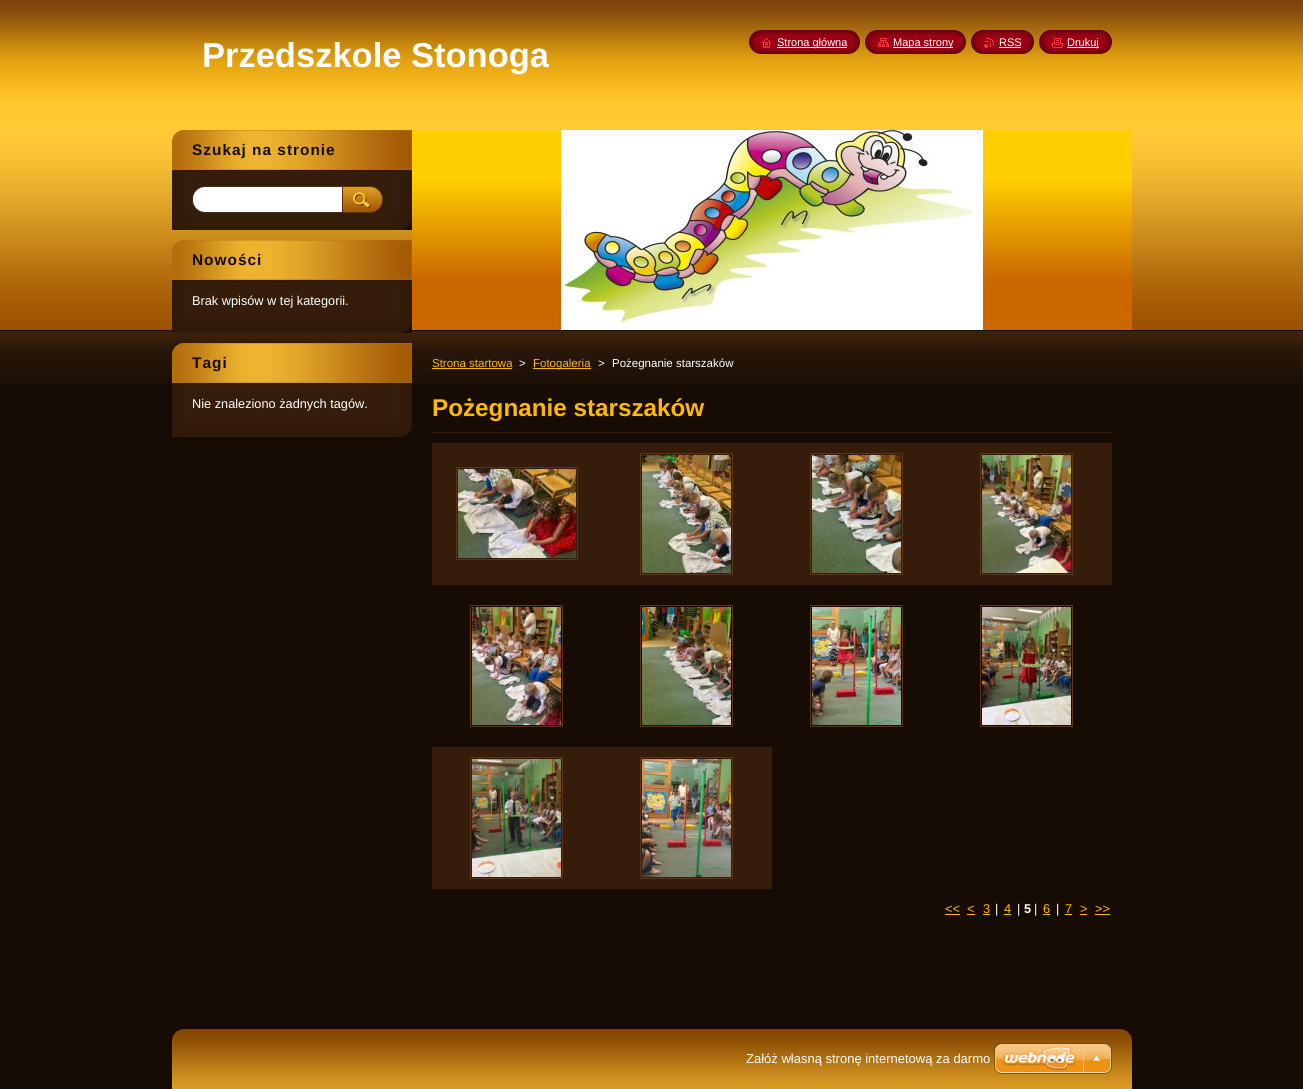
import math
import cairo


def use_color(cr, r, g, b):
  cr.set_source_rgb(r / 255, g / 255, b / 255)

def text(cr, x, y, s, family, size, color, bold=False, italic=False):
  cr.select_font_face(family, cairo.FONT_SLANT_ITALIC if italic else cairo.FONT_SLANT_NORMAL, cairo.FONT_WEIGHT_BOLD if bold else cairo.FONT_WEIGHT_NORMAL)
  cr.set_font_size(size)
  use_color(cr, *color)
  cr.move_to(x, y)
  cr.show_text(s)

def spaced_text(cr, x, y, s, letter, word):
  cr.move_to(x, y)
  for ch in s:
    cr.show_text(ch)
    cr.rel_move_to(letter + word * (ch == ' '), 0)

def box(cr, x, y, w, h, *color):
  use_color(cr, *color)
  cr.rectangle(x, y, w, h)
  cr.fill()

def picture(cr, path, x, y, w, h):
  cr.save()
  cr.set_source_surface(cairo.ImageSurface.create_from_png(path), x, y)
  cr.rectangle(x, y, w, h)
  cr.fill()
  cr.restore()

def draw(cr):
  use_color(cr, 22, 12, 4)
  cr.paint()
  picture(cr, "img_01.png", 0, 0, 1303, 384)
  picture(cr, "img_02.png", 749, 30, 13, 24)
  picture(cr, "img_03.png", 762, 30, 98, 24)
  picture(cr, "img_04.png", 762, 38, 9, 10)
  box(cr, 777, 47, 70, 1, 255, 255, 255)
  picture(cr, "img_02.png", 865, 30, 13, 24)
  picture(cr, "img_05.png", 878, 30, 88, 24)
  picture(cr, "img_06.png", 878, 38, 11, 9)
  box(cr, 893, 47, 60, 1, 255, 255, 255)
  picture(cr, "img_02.png", 971, 30, 13, 24)
  picture(cr, "img_07.png", 984, 30, 50, 24)
  picture(cr, "img_08.png", 984, 38, 10, 10)
  box(cr, 999, 47, 22, 1, 255, 255, 255)
  picture(cr, "img_02.png", 1039, 30, 13, 24)
  picture(cr, "img_09.png", 1052, 30, 60, 24)
  picture(cr, "img_10.png", 1052, 38, 11, 10)
  box(cr, 1067, 47, 32, 1, 255, 255, 255)
  picture(cr, "img_11.png", 172, 213, 240, 17)
  picture(cr, "img_12.png", 172, 130, 240, 40)
  picture(cr, "img_13.png", 172, 171, 240, 42)
  box(cr, 172, 170, 240, 1, 47, 26, 10)
  picture(cr, "img_14.png", 192, 186, 150, 27)
  picture(cr, "img_15.png", 342, 186, 41, 27)
  picture(cr, "img_11.png", 172, 316, 240, 17)
  picture(cr, "img_16.png", 172, 240, 240, 40)
  picture(cr, "img_17.png", 172, 281, 240, 35)
  box(cr, 172, 280, 240, 1, 47, 26, 10)
  picture(cr, "img_11.png", 172, 420, 240, 17)
  picture(cr, "img_18.png", 172, 343, 240, 40)
  picture(cr, "img_19.png", 172, 384, 240, 36)
  box(cr, 172, 383, 240, 1, 47, 26, 10)
  picture(cr, "img_20.png", 412, 130, 720, 200)
  box(cr, 432, 368, 80, 1, 255, 185, 1)
  box(cr, 533, 368, 58, 1, 255, 185, 1)
  box(cr, 432, 432, 680, 1, 54, 29, 11)
  box(cr, 432, 443, 680, 142, 54, 29, 11)
  cr.rectangle(456.5, 467.5, 121, 92)
  use_color(cr, 91, 53, 24)
  cr.set_line_width(1)
  cr.stroke()
  picture(cr, "img_21.png", 458, 469, 118, 89)
  cr.rectangle(640.5, 453.5, 92, 121)
  cr.stroke()
  picture(cr, "img_22.png", 642, 455, 89, 118)
  cr.rectangle(810.5, 453.5, 92, 121)
  cr.stroke()
  picture(cr, "img_23.png", 812, 455, 89, 118)
  cr.rectangle(980.5, 453.5, 92, 121)
  cr.stroke()
  picture(cr, "img_24.png", 982, 455, 89, 118)
  cr.rectangle(470.5, 605.5, 92, 121)
  cr.stroke()
  picture(cr, "img_25.png", 472, 607, 89, 118)
  cr.rectangle(640.5, 605.5, 92, 121)
  cr.stroke()
  picture(cr, "img_26.png", 642, 607, 89, 118)
  cr.rectangle(810.5, 605.5, 92, 121)
  cr.stroke()
  picture(cr, "img_27.png", 812, 607, 89, 118)
  cr.rectangle(980.5, 605.5, 92, 121)
  cr.stroke()
  picture(cr, "img_28.png", 982, 607, 89, 118)
  box(cr, 432, 747, 340, 142, 54, 29, 11)
  cr.rectangle(470.5, 757.5, 92, 121)
  use_color(cr, 91, 53, 24)
  cr.stroke()
  picture(cr, "img_29.png", 472, 759, 89, 118)
  cr.rectangle(640.5, 757.5, 92, 121)
  cr.stroke()
  picture(cr, "img_30.png", 642, 759, 89, 118)
  box(cr, 945, 914, 15, 1, 255, 185, 1)
  box(cr, 967, 914, 8, 1, 255, 185, 1)
  box(cr, 983, 914, 7, 1, 255, 185, 1)
  box(cr, 1004, 914, 7, 1, 255, 185, 1)
  box(cr, 1043, 914, 7, 1, 255, 185, 1)
  box(cr, 1065, 914, 7, 1, 255, 185, 1)
  box(cr, 1080, 914, 7, 1, 255, 185, 1)
  box(cr, 1095, 914, 15, 1, 255, 185, 1)
  picture(cr, "img_31.png", 172, 1029, 960, 60)
  picture(cr, "img_32.png", 994, 1043, 118, 31)
  text(cr, 202, 67, "Przedszkole Stonoga", "Liberation Sans", 34.5, (255, 255, 255), bold=True)
  text(cr, 777, 46, "Strona główna", "Liberation Sans", 11, (255, 255, 255))
  text(cr, 893, 46, "Mapa strony", "Liberation Sans", 11, (255, 255, 255))
  text(cr, 999, 46, "RSS", "Liberation Sans", 11, (255, 255, 255))
  text(cr, 1067, 46, "Drukuj", "Liberation Sans", 11, (255, 255, 255))
  cr.select_font_face("Liberation Sans", cairo.FONT_SLANT_NORMAL, cairo.FONT_WEIGHT_BOLD)
  cr.set_font_size(15.4)
  use_color(cr, 22, 12, 4)
  spaced_text(cr, 192, 155, "Szukaj na stronie", 1, 0)
  spaced_text(cr, 192, 265, "Nowości", 1, 0)
  text(cr, 192, 305, "Brak wpisów w tej kategorii.", "Liberation Sans", 12.75, (255, 255, 255))
  cr.select_font_face("Liberation Sans", cairo.FONT_SLANT_NORMAL, cairo.FONT_WEIGHT_BOLD)
  cr.set_font_size(15.4)
  use_color(cr, 22, 12, 4)
  spaced_text(cr, 192, 368, "Tagi", 1, 0)
  text(cr, 192, 408, "Nie znaleziono żadnych tagów.", "Liberation Sans", 12.75, (255, 255, 255))
  text(cr, 432, 367, "Strona startowa", "Liberation Sans", 11.5, (255, 185, 1))
  text(cr, 519, 367, ">", "Liberation Sans", 11.5, (255, 255, 255))
  text(cr, 533, 367, "Fotogaleria", "Liberation Sans", 11.5, (255, 185, 1))
  text(cr, 598, 367, ">", "Liberation Sans", 11.5, (255, 255, 255))
  text(cr, 612, 367, "Pożegnanie starszaków", "Liberation Sans", 11.5, (255, 255, 255))
  text(cr, 432, 416, "Pożegnanie starszaków", "Liberation Sans", 24.25, (255, 185, 1), bold=True)
  text(cr, 945, 913, "<<", "Liberation Sans", 12.75, (255, 185, 1))
  text(cr, 967, 913, "<", "Liberation Sans", 12.75, (255, 185, 1))
  text(cr, 983, 913, "3", "Liberation Sans", 12.75, (255, 185, 1))
  text(cr, 995, 913, "|", "Liberation Sans", 12.75, (255, 255, 255))
  text(cr, 1004, 913, "4", "Liberation Sans", 12.75, (255, 185, 1))
  text(cr, 1017, 913, "|", "Liberation Sans", 12.75, (255, 255, 255))
  text(cr, 1024, 913, "5", "Liberation Sans", 12.75, (255, 255, 255), bold=True)
  text(cr, 1034, 913, "|", "Liberation Sans", 12.75, (255, 255, 255))
  text(cr, 1043, 913, "6", "Liberation Sans", 12.75, (255, 185, 1))
  text(cr, 1056, 913, "|", "Liberation Sans", 12.75, (255, 255, 255))
  text(cr, 1065, 913, "7", "Liberation Sans", 12.75, (255, 185, 1))
  text(cr, 1080, 913, ">", "Liberation Sans", 12.75, (255, 185, 1))
  text(cr, 1095, 913, ">>", "Liberation Sans", 12.75, (255, 185, 1))
  text(cr, 746, 1063, "Załóż własną stronę internetową za darmo", "Liberation Sans", 13, (255, 255, 255))


surface = cairo.ImageSurface(cairo.FORMAT_RGB24, 1303, 1089)
cr = cairo.Context(surface)
options = cairo.FontOptions()
options.set_hint_metrics(cairo.HINT_METRICS_OFF)
options.set_hint_style(cairo.HINT_STYLE_NONE)
cr.set_font_options(options)
cr.set_miter_limit(4)
draw(cr)
surface.write_to_png("out.png")
